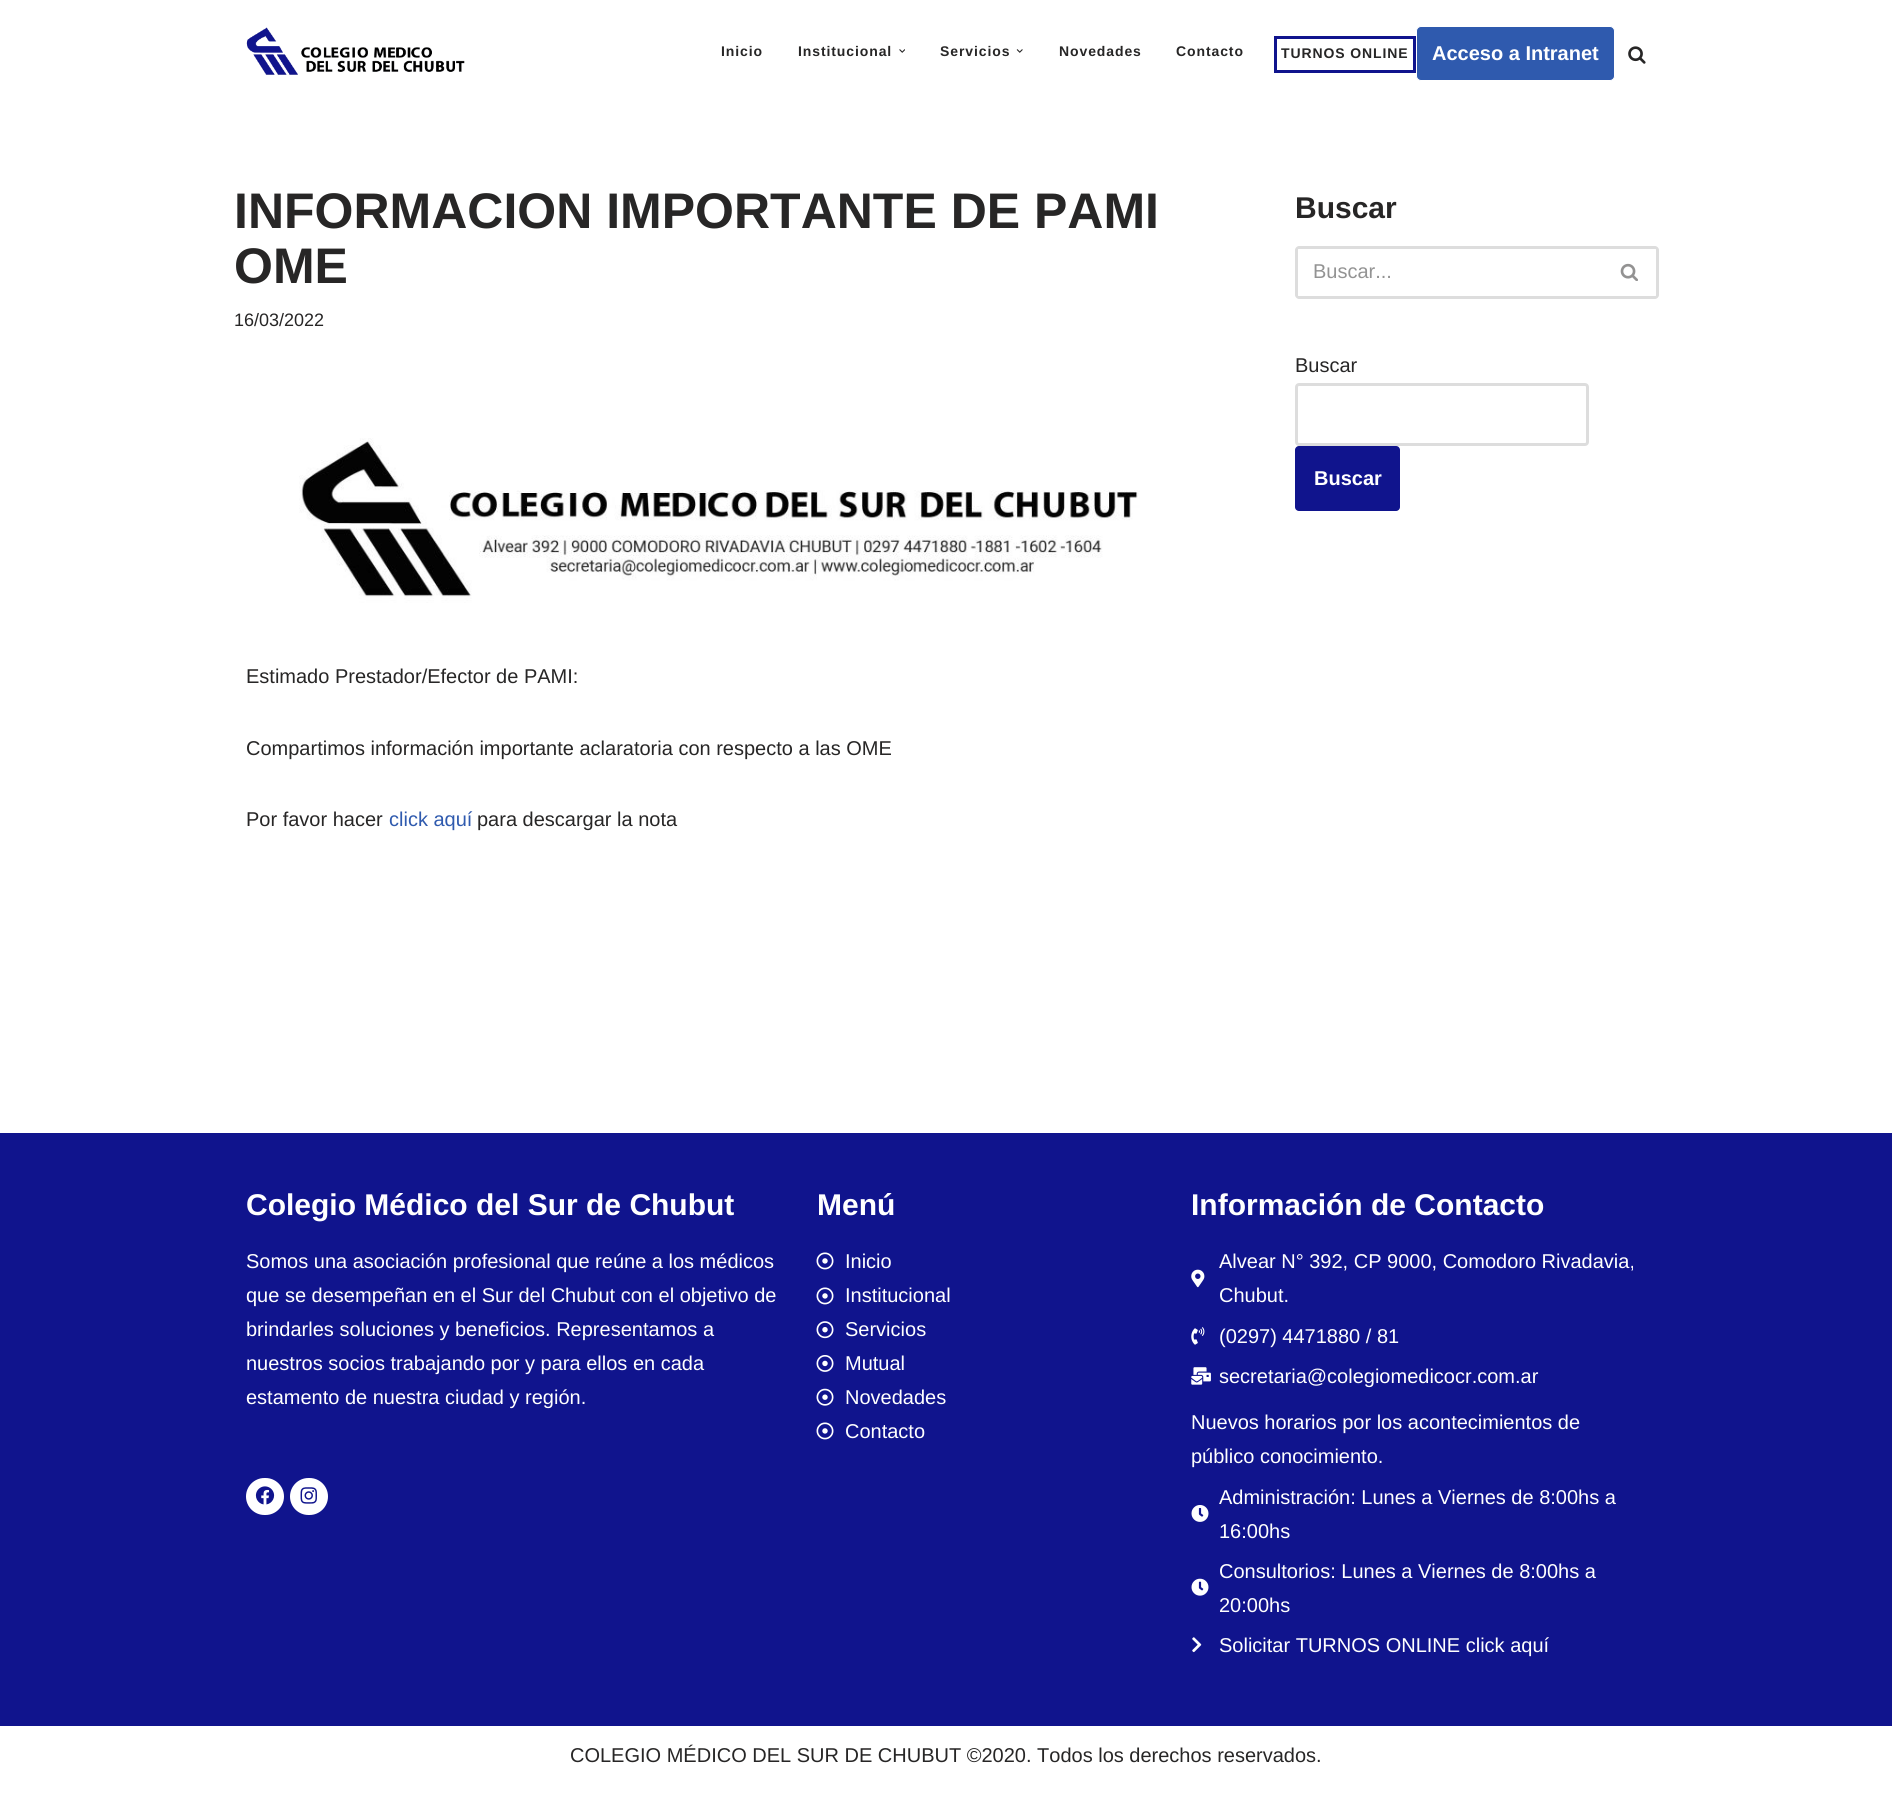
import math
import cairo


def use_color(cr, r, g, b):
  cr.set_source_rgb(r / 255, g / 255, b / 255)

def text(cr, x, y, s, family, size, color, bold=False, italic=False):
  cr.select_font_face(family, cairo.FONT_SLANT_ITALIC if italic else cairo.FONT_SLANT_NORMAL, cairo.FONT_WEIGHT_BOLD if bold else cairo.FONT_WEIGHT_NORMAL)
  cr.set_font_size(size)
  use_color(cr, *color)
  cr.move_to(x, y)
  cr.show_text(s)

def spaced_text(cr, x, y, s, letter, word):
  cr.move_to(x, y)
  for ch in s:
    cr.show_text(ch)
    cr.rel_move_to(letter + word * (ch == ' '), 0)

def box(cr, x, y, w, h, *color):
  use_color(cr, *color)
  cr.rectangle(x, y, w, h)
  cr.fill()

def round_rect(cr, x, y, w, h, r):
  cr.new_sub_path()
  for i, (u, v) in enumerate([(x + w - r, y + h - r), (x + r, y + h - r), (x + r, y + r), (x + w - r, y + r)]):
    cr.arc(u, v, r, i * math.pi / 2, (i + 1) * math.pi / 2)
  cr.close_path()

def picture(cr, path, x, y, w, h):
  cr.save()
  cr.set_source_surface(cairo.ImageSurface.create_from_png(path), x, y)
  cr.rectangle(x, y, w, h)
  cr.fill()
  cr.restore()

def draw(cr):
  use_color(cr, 255, 255, 255)
  cr.paint()
  picture(cr, "img_01.png", 246, 27, 219, 48)
  picture(cr, "img_02.png", 899, 49, 6, 4)
  picture(cr, "img_03.png", 1016, 49, 7, 4)
  cr.rectangle(1275.5, 37.5, 139, 34)
  use_color(cr, 16, 20, 141)
  cr.set_line_width(3)
  cr.stroke()
  use_color(cr, 47, 90, 174)
  round_rect(cr, 1416.5, 26.5, 198, 54, 4.5)
  cr.fill_preserve()
  use_color(cr, 255, 255, 255)
  cr.set_line_width(1)
  cr.stroke()
  picture(cr, "img_04.png", 1628, 46, 18, 18)
  picture(cr, "img_05.png", 299, 438, 841, 165)
  use_color(cr, 221, 221, 221)
  cr.set_fill_rule(cairo.FILL_RULE_EVEN_ODD)
  cr.new_path()
  cr.move_to(1299, 246)
  cr.line_to(1602, 246)
  cr.line_to(1602, 299)
  cr.line_to(1299, 299)
  cr.curve_to(1297, 299, 1295, 297, 1295, 295)
  cr.line_to(1295, 250)
  cr.curve_to(1295, 248, 1297, 246, 1299, 246)
  cr.close_path()
  cr.move_to(1299, 249)
  cr.line_to(1602, 249)
  cr.line_to(1602, 296)
  cr.line_to(1299, 296)
  cr.curve_to(1298, 296, 1298, 296, 1298, 295)
  cr.line_to(1298, 250)
  cr.curve_to(1298, 249, 1298, 249, 1299, 249)
  cr.close_path()
  cr.fill()
  cr.new_path()
  cr.move_to(1602, 246)
  cr.line_to(1655, 246)
  cr.curve_to(1657, 246, 1659, 248, 1659, 250)
  cr.line_to(1659, 295)
  cr.curve_to(1659, 297, 1657, 299, 1655, 299)
  cr.line_to(1602, 299)
  cr.close_path()
  cr.move_to(1602, 249)
  cr.line_to(1655, 249)
  cr.curve_to(1656, 249, 1656, 249, 1656, 250)
  cr.line_to(1656, 295)
  cr.curve_to(1656, 296, 1656, 296, 1655, 296)
  cr.line_to(1602, 296)
  cr.close_path()
  cr.fill()
  picture(cr, "img_06.png", 1620, 263, 18, 18)
  round_rect(cr, 1296.5, 384.5, 291, 60, 2.5)
  cr.set_line_width(3)
  cr.stroke()
  use_color(cr, 16, 20, 141)
  round_rect(cr, 1295, 446, 105, 65, 4)
  cr.fill()
  box(cr, 0, 1133, 1892, 593, 16, 20, 141)
  use_color(cr, 255, 255, 255)
  round_rect(cr, 246, 1478, 38, 37, 18.5)
  cr.fill()
  picture(cr, "img_07.png", 255, 1486, 20, 19)
  round_rect(cr, 290, 1478, 38, 37, 18.5)
  cr.fill()
  picture(cr, "img_08.png", 300, 1487, 17, 17)
  picture(cr, "img_09.png", 816, 1252, 18, 18)
  picture(cr, "img_09.png", 816, 1287, 18, 18)
  picture(cr, "img_10.png", 816, 1321, 18, 18)
  picture(cr, "img_11.png", 816, 1355, 18, 17)
  picture(cr, "img_12.png", 816, 1388, 18, 18)
  picture(cr, "img_09.png", 816, 1422, 18, 18)
  picture(cr, "img_13.png", 1191, 1269, 14, 19)
  picture(cr, "img_14.png", 1191, 1327, 14, 18)
  picture(cr, "img_15.png", 1191, 1367, 20, 18)
  picture(cr, "img_16.png", 1191, 1505, 18, 17)
  picture(cr, "img_17.png", 1191, 1578, 18, 18)
  picture(cr, "img_18.png", 1192, 1637, 10, 16)
  cr.select_font_face("Liberation Sans", cairo.FONT_SLANT_NORMAL, cairo.FONT_WEIGHT_BOLD)
  cr.set_font_size(14)
  use_color(cr, 39, 38, 38)
  spaced_text(cr, 721, 56, "Inicio", 0.9, 0)
  spaced_text(cr, 798, 56, "Institucional", 0.9, 0)
  spaced_text(cr, 940, 56, "Servicios", 0.9, 0)
  spaced_text(cr, 1059, 56, "Novedades", 0.9, 0)
  spaced_text(cr, 1176, 56, "Contacto", 0.9, 0)
  spaced_text(cr, 1281, 58, "TURNOS ONLINE", 0.9, 0)
  text(cr, 1432, 60, "Acceso a Intranet", "Liberation Sans", 20, (255, 255, 255), bold=True)
  text(cr, 234, 228, "INFORMACION IMPORTANTE DE PAMI", "Liberation Sans", 50, (39, 38, 38), bold=True)
  text(cr, 234, 283, "OME", "Liberation Sans", 50, (39, 38, 38), bold=True)
  text(cr, 234, 326, "16/03/2022", "Liberation Sans", 18, (39, 38, 38))
  text(cr, 246, 683, "Estimado Prestador/Efector de PAMI:", "Liberation Sans", 20, (39, 38, 38))
  text(cr, 246, 755, "Compartimos información importante aclaratoria con respecto a las OME", "Liberation Sans", 20, (39, 38, 38))
  text(cr, 246, 826, "Por favor hacer", "Liberation Sans", 20, (39, 38, 38))
  text(cr, 389, 826, "click aquí", "Liberation Sans", 20, (47, 90, 174))
  text(cr, 477, 826, "para descargar la nota", "Liberation Sans", 20, (39, 38, 38))
  text(cr, 1295, 218, "Buscar", "Liberation Sans", 30, (39, 38, 38), bold=True)
  text(cr, 1313, 278, "Buscar...", "Liberation Sans", 20, (147, 147, 147))
  text(cr, 1295, 372, "Buscar", "Liberation Sans", 20, (39, 38, 38))
  text(cr, 1314, 485, "Buscar", "Liberation Sans", 20, (255, 255, 255), bold=True)
  text(cr, 246, 1215, "Colegio Médico del Sur de Chubut", "Liberation Sans", 30, (255, 255, 255), bold=True)
  text(cr, 246, 1268, "Somos una asociación profesional que reúne a los médicos", "Liberation Sans", 20, (255, 255, 255))
  text(cr, 246, 1302, "que se desempeñan en el Sur del Chubut con el objetivo de", "Liberation Sans", 20, (255, 255, 255))
  text(cr, 246, 1336, "brindarles soluciones y beneficios. Representamos a", "Liberation Sans", 20, (255, 255, 255))
  text(cr, 246, 1370, "nuestros socios trabajando por y para ellos en cada", "Liberation Sans", 20, (255, 255, 255))
  text(cr, 246, 1404, "estamento de nuestra ciudad y región.", "Liberation Sans", 20, (255, 255, 255))
  text(cr, 817, 1215, "Menú", "Liberation Sans", 30, (255, 255, 255), bold=True)
  text(cr, 845, 1268, "Inicio", "Liberation Sans", 20, (255, 255, 255))
  text(cr, 845, 1302, "Institucional", "Liberation Sans", 20, (255, 255, 255))
  text(cr, 845, 1336, "Servicios", "Liberation Sans", 20, (255, 255, 255))
  text(cr, 845, 1370, "Mutual", "Liberation Sans", 20, (255, 255, 255))
  text(cr, 845, 1404, "Novedades", "Liberation Sans", 20, (255, 255, 255))
  text(cr, 845, 1438, "Contacto", "Liberation Sans", 20, (255, 255, 255))
  text(cr, 1191, 1215, "Información de Contacto", "Liberation Sans", 30, (255, 255, 255), bold=True)
  text(cr, 1219, 1268, "Alvear N° 392, CP 9000, Comodoro Rivadavia,", "Liberation Sans", 20, (255, 255, 255))
  text(cr, 1219, 1302, "Chubut.", "Liberation Sans", 20, (255, 255, 255))
  text(cr, 1219, 1343, "(0297) 4471880 / 81", "Liberation Sans", 20, (255, 255, 255))
  text(cr, 1219, 1383, "secretaria@colegiomedicocr.com.ar", "Liberation Sans", 20, (255, 255, 255))
  text(cr, 1191, 1429, "Nuevos horarios por los acontecimientos de", "Liberation Sans", 20, (255, 255, 255))
  text(cr, 1191, 1463, "público conocimiento.", "Liberation Sans", 20, (255, 255, 255))
  text(cr, 1219, 1504, "Administración: Lunes a Viernes de 8:00hs a", "Liberation Sans", 20, (255, 255, 255))
  text(cr, 1219, 1538, "16:00hs", "Liberation Sans", 20, (255, 255, 255))
  text(cr, 1219, 1578, "Consultorios: Lunes a Viernes de 8:00hs a", "Liberation Sans", 20, (255, 255, 255))
  text(cr, 1219, 1612, "20:00hs", "Liberation Sans", 20, (255, 255, 255))
  text(cr, 1219, 1652, "Solicitar TURNOS ONLINE click aquí", "Liberation Sans", 20, (255, 255, 255))
  text(cr, 570, 1762, "COLEGIO MÉDICO DEL SUR DE CHUBUT ©2020. Todos los derechos reservados.", "Liberation Sans", 20, (39, 38, 38))


surface = cairo.ImageSurface(cairo.FORMAT_RGB24, 1892, 1797)
cr = cairo.Context(surface)
options = cairo.FontOptions()
options.set_hint_metrics(cairo.HINT_METRICS_OFF)
options.set_hint_style(cairo.HINT_STYLE_NONE)
cr.set_font_options(options)
cr.set_miter_limit(4)
draw(cr)
surface.write_to_png("out.png")
